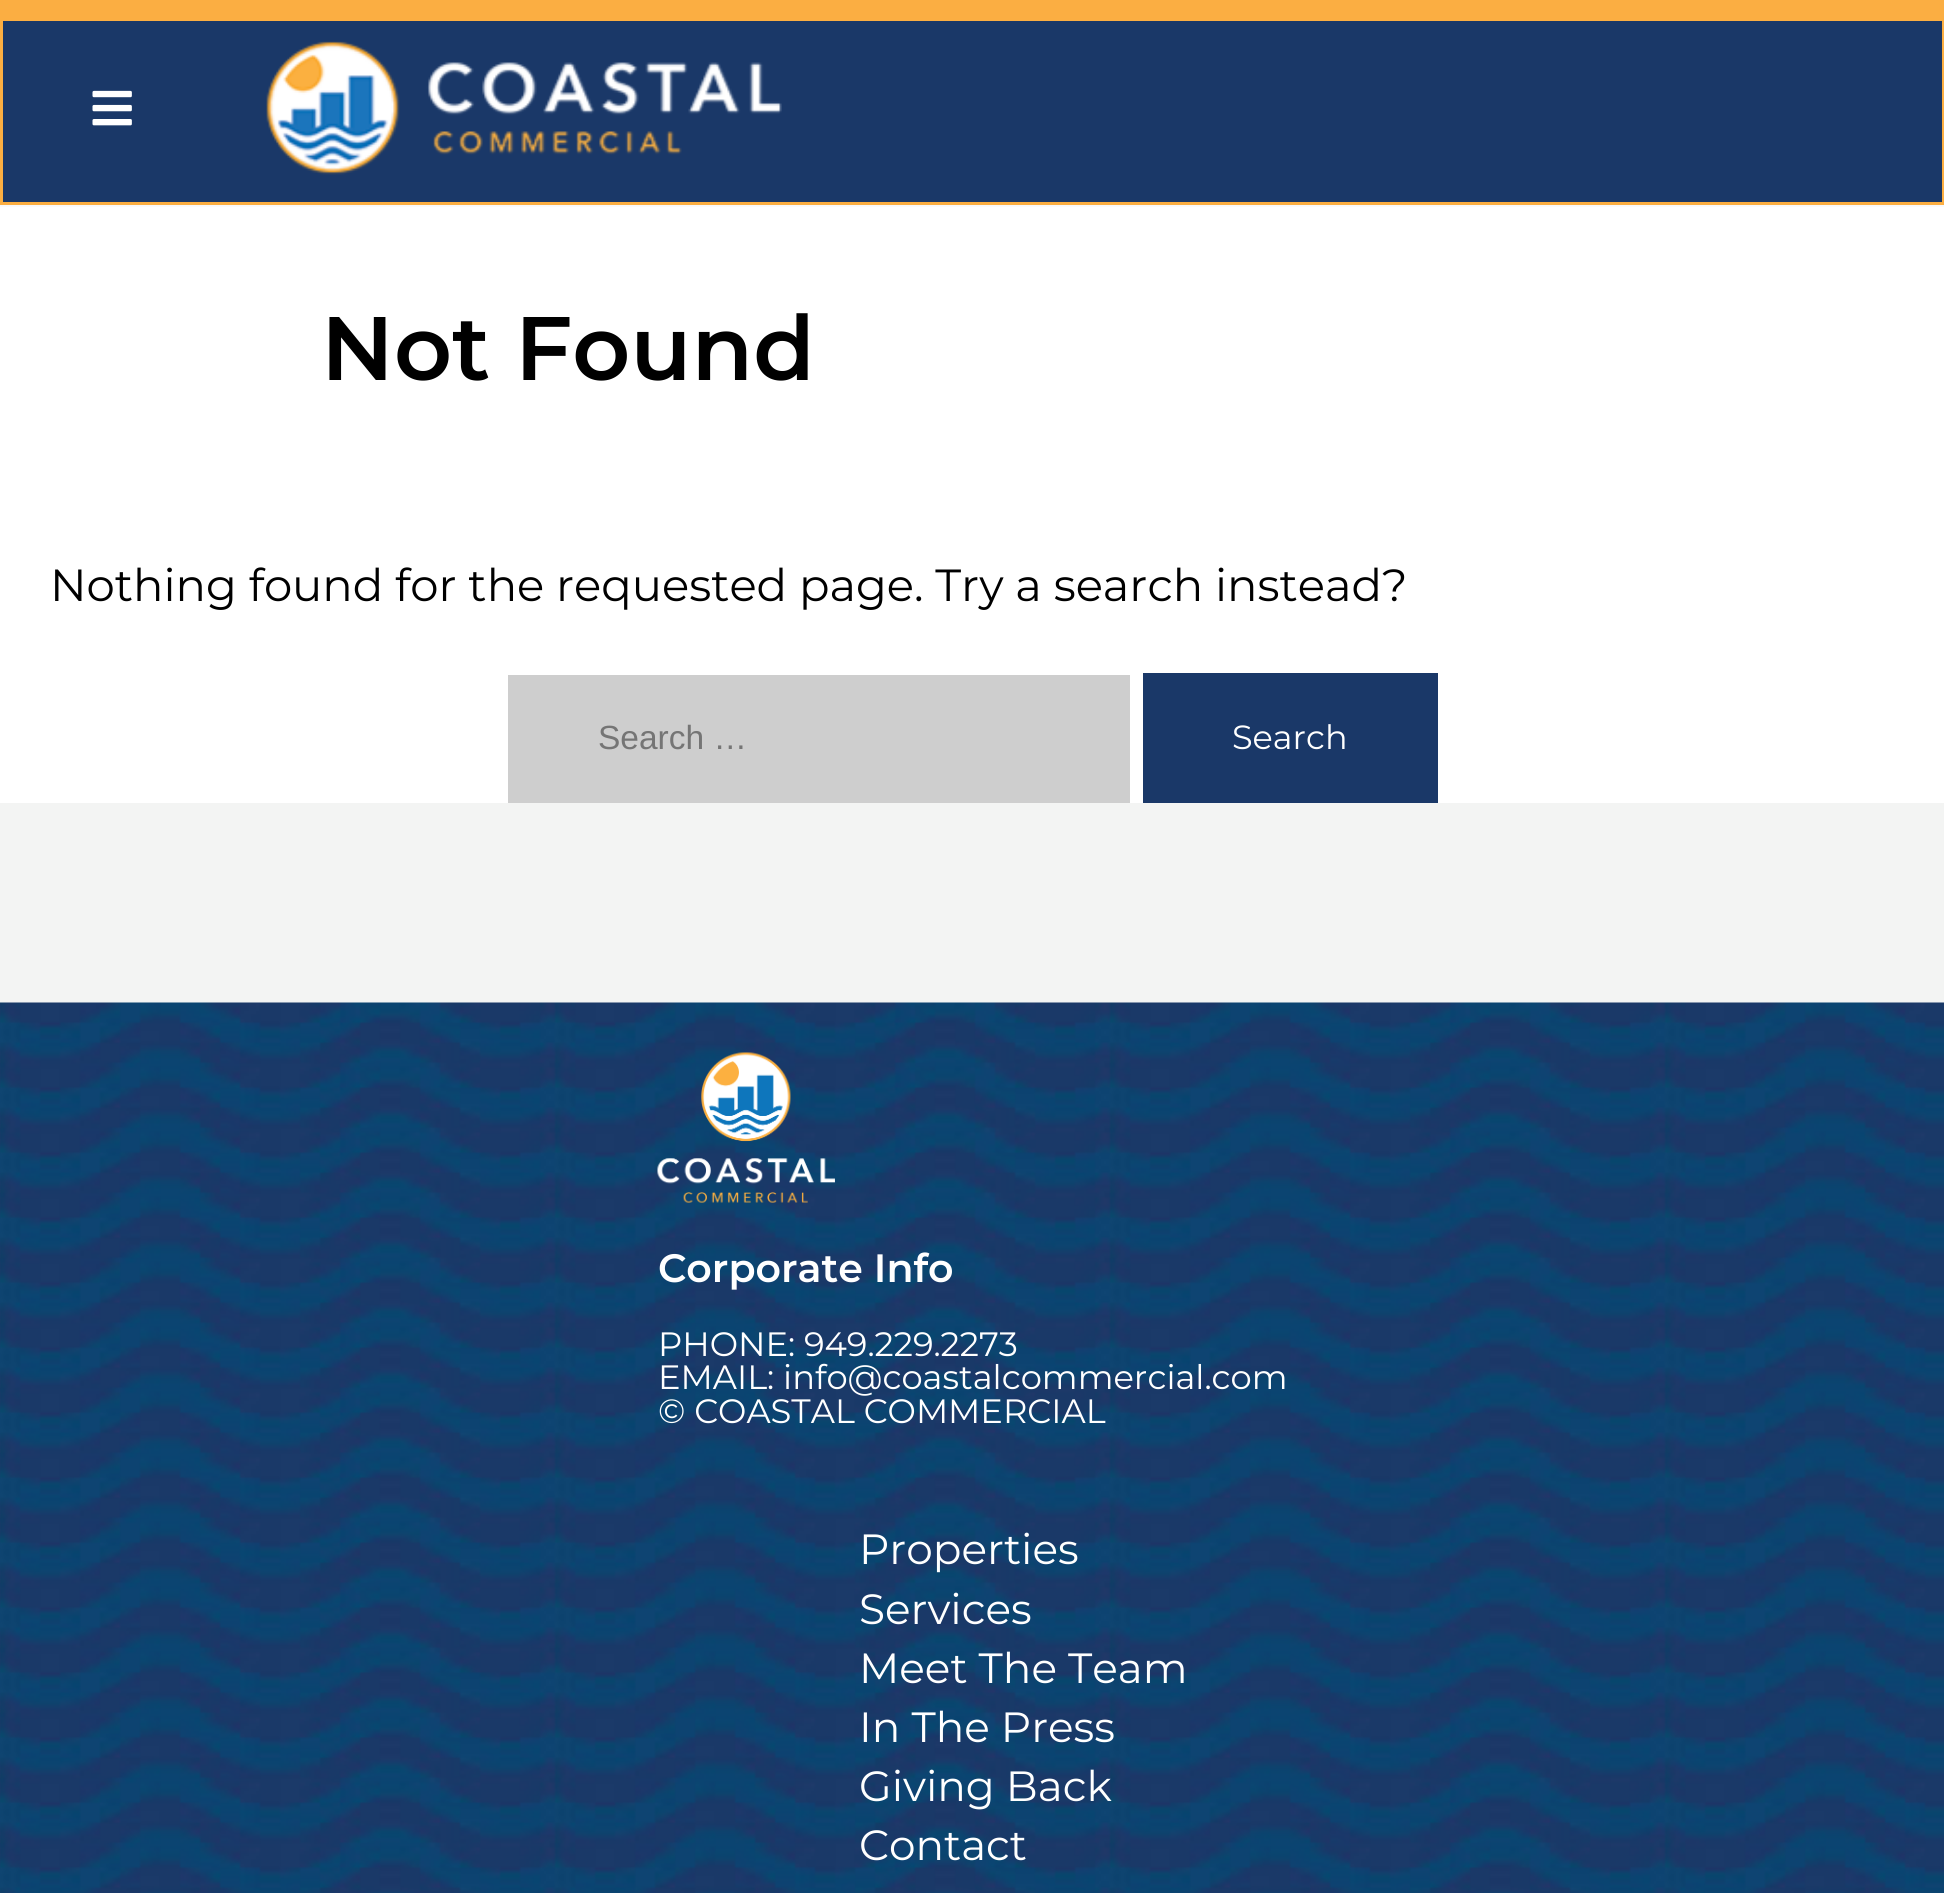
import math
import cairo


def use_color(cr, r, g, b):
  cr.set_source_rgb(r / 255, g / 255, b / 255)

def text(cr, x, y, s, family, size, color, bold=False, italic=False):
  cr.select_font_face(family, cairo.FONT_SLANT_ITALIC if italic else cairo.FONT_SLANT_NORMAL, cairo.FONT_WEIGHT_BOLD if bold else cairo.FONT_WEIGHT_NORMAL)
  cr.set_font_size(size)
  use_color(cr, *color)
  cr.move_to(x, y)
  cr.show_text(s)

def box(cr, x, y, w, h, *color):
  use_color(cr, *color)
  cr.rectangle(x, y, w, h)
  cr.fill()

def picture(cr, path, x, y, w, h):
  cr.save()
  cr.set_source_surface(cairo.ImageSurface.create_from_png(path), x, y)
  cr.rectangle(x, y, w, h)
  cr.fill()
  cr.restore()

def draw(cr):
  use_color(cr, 243, 244, 243)
  cr.paint()
  box(cr, 0, 205, 1944, 598, 255, 255, 255)
  picture(cr, "img_01.png", 0, 205, 1944, 2)
  box(cr, 0, 0, 1944, 18, 251, 174, 66)
  use_color(cr, 26, 56, 104)
  cr.rectangle(1.5, 19.5, 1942, 184)
  cr.fill_preserve()
  use_color(cr, 251, 174, 66)
  cr.set_line_width(3)
  cr.stroke()
  picture(cr, "img_02.png", 92, 90, 40, 36)
  picture(cr, "img_03.png", 266, 41, 516, 134)
  box(cr, 508, 675, 622, 128, 206, 206, 206)
  box(cr, 1143, 673, 295, 130, 26, 56, 104)
  picture(cr, "img_04.png", 0, 1002, 1944, 891)
  picture(cr, "img_05.png", 657, 1052, 178, 151)
  text(cr, 321, 380, "Not Found", "Montserrat SemiBold", 90, (0, 0, 0))
  text(cr, 50, 601, "Nothing found for the requested page. Try a search instead?", "Montserrat", 45, (0, 0, 0))
  text(cr, 598, 749, "Search …", "Liberation Sans", 33.5, (117, 117, 117))
  text(cr, 1232, 749, "Search", "Montserrat", 33.5, (255, 255, 255))
  text(cr, 658, 1282, "Corporate Info", "Montserrat SemiBold", 39.5, (255, 255, 255))
  text(cr, 658, 1356, "PHONE: 949.229.2273", "Montserrat", 33.75, (255, 255, 255))
  text(cr, 658, 1389, "EMAIL: info@coastalcommercial.com", "Montserrat", 33.75, (255, 255, 255))
  text(cr, 658, 1423, "© COASTAL COMMERCIAL", "Montserrat", 33.75, (255, 255, 255))
  text(cr, 859, 1564, "Properties", "Montserrat", 42.25, (255, 255, 255))
  text(cr, 859, 1624, "Services", "Montserrat", 42.25, (255, 255, 255))
  text(cr, 859, 1683, "Meet The Team", "Montserrat", 42.25, (255, 255, 255))
  text(cr, 859, 1742, "In The Press", "Montserrat", 42.25, (255, 255, 255))
  text(cr, 859, 1801, "Giving Back", "Montserrat", 42.25, (255, 255, 255))
  text(cr, 859, 1860, "Contact", "Montserrat", 42.25, (255, 255, 255))


surface = cairo.ImageSurface(cairo.FORMAT_RGB24, 1944, 1893)
cr = cairo.Context(surface)
options = cairo.FontOptions()
options.set_hint_metrics(cairo.HINT_METRICS_OFF)
options.set_hint_style(cairo.HINT_STYLE_NONE)
cr.set_font_options(options)
cr.set_miter_limit(4)
draw(cr)
surface.write_to_png("out.png")
